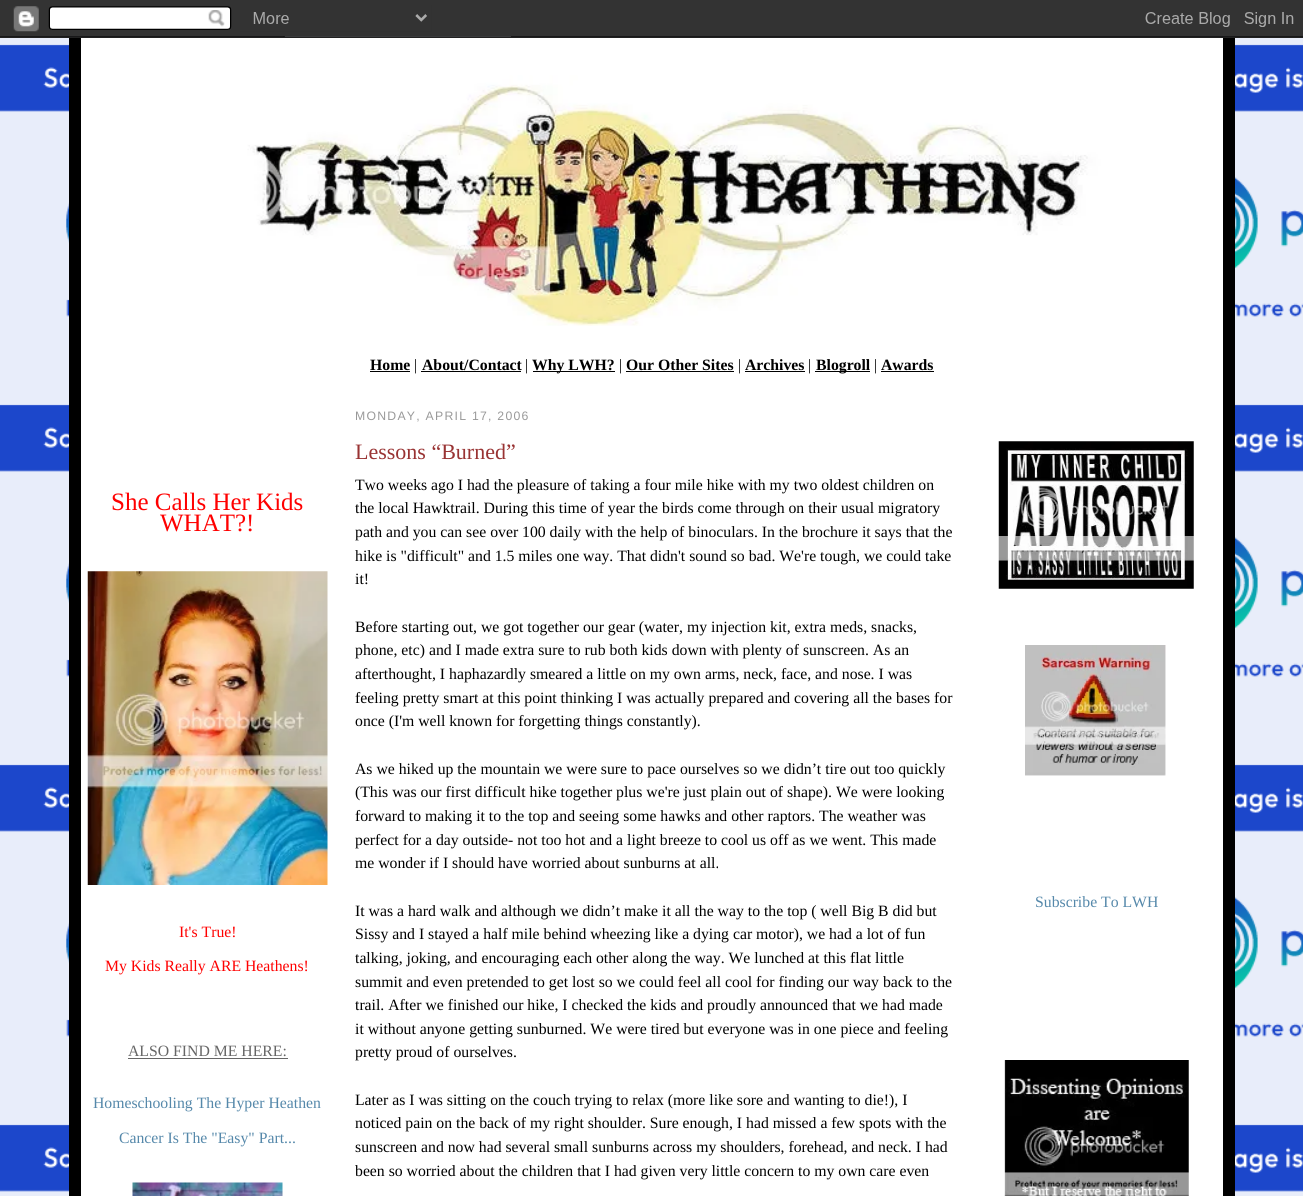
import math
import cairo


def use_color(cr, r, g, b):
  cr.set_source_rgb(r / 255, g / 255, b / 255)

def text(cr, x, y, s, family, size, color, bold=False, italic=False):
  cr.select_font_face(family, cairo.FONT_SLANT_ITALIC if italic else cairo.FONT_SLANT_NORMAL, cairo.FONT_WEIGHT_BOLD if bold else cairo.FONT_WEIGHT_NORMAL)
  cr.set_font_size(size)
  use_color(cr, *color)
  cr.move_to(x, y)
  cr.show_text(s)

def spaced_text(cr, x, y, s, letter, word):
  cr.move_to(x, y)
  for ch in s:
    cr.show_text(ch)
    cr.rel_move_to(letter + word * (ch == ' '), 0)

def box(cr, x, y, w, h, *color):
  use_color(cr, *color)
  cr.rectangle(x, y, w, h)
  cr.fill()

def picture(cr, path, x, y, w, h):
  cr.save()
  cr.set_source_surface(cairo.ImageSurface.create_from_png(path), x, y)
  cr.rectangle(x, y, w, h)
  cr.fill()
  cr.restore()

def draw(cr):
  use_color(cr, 255, 255, 255)
  cr.paint()
  picture(cr, "img_01.png", 0, 36, 1303, 1160)
  picture(cr, "img_02.png", 0, 0, 1303, 38)
  box(cr, 81, 38, 1142, 1158, 255, 255, 255)
  box(cr, 1223, 38, 12, 1158, 0, 0, 0)
  box(cr, 69, 38, 12, 1158, 0, 0, 0)
  picture(cr, "img_03.png", 120, 75, 1065, 251)
  box(cr, 370, 371, 40, 1, 0, 0, 0)
  box(cr, 421, 371, 100, 1, 0, 0, 0)
  box(cr, 533, 371, 82, 1, 0, 0, 0)
  box(cr, 626, 371, 108, 1, 0, 0, 0)
  box(cr, 745, 371, 60, 1, 0, 0, 0)
  box(cr, 815, 371, 55, 1, 0, 0, 0)
  box(cr, 881, 371, 53, 1, 0, 0, 0)
  picture(cr, "img_04.png", 87, 571, 241, 314)
  box(cr, 128, 1058, 160, 1, 102, 102, 102)
  picture(cr, "img_05.png", 132, 1182, 151, 14)
  picture(cr, "img_06.png", 998, 441, 196, 148)
  picture(cr, "img_07.png", 1025, 645, 141, 131)
  picture(cr, "img_08.png", 1004, 1060, 185, 136)
  text(cr, 370, 370, "Home", "Liberation Serif", 15.75, (0, 0, 0), bold=True)
  text(cr, 414, 370, "|", "Liberation Serif", 15.75, (0, 0, 0))
  text(cr, 422, 370, "About/Contact", "Liberation Serif", 15.75, (0, 0, 0), bold=True)
  text(cr, 525, 370, "|", "Liberation Serif", 15.75, (0, 0, 0))
  text(cr, 532, 370, "Why LWH?", "Liberation Serif", 15.75, (0, 0, 0), bold=True)
  text(cr, 619, 370, "|", "Liberation Serif", 15.75, (0, 0, 0))
  text(cr, 626, 370, "Our Other Sites", "Liberation Serif", 15.75, (0, 0, 0), bold=True)
  text(cr, 738, 370, "|", "Liberation Serif", 15.75, (0, 0, 0))
  text(cr, 745, 370, "Archives", "Liberation Serif", 15.75, (0, 0, 0), bold=True)
  text(cr, 808, 370, "|", "Liberation Serif", 15.75, (0, 0, 0))
  text(cr, 816, 370, "Blogroll", "Liberation Serif", 15.75, (0, 0, 0), bold=True)
  text(cr, 874, 370, "|", "Liberation Serif", 15.75, (0, 0, 0))
  text(cr, 881, 370, "Awards", "Liberation Serif", 15.75, (0, 0, 0), bold=True)
  text(cr, 111, 510, "She Calls Her Kids", "Liberation Serif", 25, (255, 0, 0))
  text(cr, 160, 531, "WHAT?!", "Liberation Serif", 25, (255, 0, 0))
  text(cr, 179, 937, "It's True!", "Liberation Serif", 15.75, (255, 0, 0))
  text(cr, 105, 971, "My Kids Really ARE Heathens!", "Liberation Serif", 15.75, (255, 0, 0))
  text(cr, 128, 1056, "ALSO FIND ME HERE:", "Liberation Serif", 15.75, (102, 102, 102))
  text(cr, 93, 1108, "Homeschooling The Hyper Heathen", "Liberation Serif", 15.75, (85, 136, 170))
  text(cr, 119, 1143, "Cancer Is The \"Easy\" Part...", "Liberation Serif", 15.75, (85, 136, 170))
  cr.select_font_face("Liberation Sans")
  cr.set_font_size(12.25)
  use_color(cr, 153, 153, 153)
  spaced_text(cr, 355, 420, "MONDAY, APRIL 17, 2006", 1.25, 0)
  text(cr, 355, 459, "Lessons “Burned”", "Liberation Serif", 22, (153, 51, 51))
  text(cr, 355, 490, "Two weeks ago I had the pleasure of taking a four mile hike with my two oldest children on", "Liberation Serif", 15.75, (0, 0, 0))
  text(cr, 355, 513, "the local Hawktrail. During this time of year the birds come through on their usual migratory", "Liberation Serif", 15.75, (0, 0, 0))
  text(cr, 355, 537, "path and you can see over 100 daily with the help of binoculars. In the brochure it says that the", "Liberation Serif", 15.75, (0, 0, 0))
  text(cr, 355, 561, "hike is \"difficult\" and 1.5 miles one way. That didn't sound so bad. We're tough, we could take", "Liberation Serif", 15.75, (0, 0, 0))
  text(cr, 355, 584, "it!", "Liberation Serif", 15.75, (0, 0, 0))
  text(cr, 355, 632, "Before starting out, we got together our gear (water, my injection kit, extra meds, snacks,", "Liberation Serif", 15.75, (0, 0, 0))
  text(cr, 355, 655, "phone, etc) and I made extra sure to rub both kids down with plenty of sunscreen. As an", "Liberation Serif", 15.75, (0, 0, 0))
  text(cr, 355, 679, "afterthought, I haphazardly smeared a little on my own arms, neck, face, and nose. I was", "Liberation Serif", 15.75, (0, 0, 0))
  text(cr, 355, 703, "feeling pretty smart at this point thinking I was actually prepared and covering all the bases for", "Liberation Serif", 15.75, (0, 0, 0))
  text(cr, 355, 726, "once (I'm well known for forgetting things constantly).", "Liberation Serif", 15.75, (0, 0, 0))
  text(cr, 355, 774, "As we hiked up the mountain we were sure to pace ourselves so we didn’t tire out too quickly", "Liberation Serif", 15.75, (0, 0, 0))
  text(cr, 355, 797, "(This was our first difficult hike together plus we're just plain out of shape). We were looking", "Liberation Serif", 15.75, (0, 0, 0))
  text(cr, 355, 821, "forward to making it to the top and seeing some hawks and other raptors. The weather was", "Liberation Serif", 15.75, (0, 0, 0))
  text(cr, 355, 845, "perfect for a day outside- not too hot and a light breeze to cool us off as we went. This made", "Liberation Serif", 15.75, (0, 0, 0))
  text(cr, 355, 868, "me wonder if I should have worried about sunburns at all.", "Liberation Serif", 15.75, (0, 0, 0))
  text(cr, 355, 916, "It was a hard walk and although we didn’t make it all the way to the top ( well Big B did but", "Liberation Serif", 15.75, (0, 0, 0))
  text(cr, 355, 939, "Sissy and I stayed a half mile behind wheezing like a dying car motor), we had a lot of fun", "Liberation Serif", 15.75, (0, 0, 0))
  text(cr, 355, 963, "talking, joking, and encouraging each other along the way. We lunched at this flat little", "Liberation Serif", 15.75, (0, 0, 0))
  text(cr, 355, 987, "summit and even pretended to get lost so we could feel all cool for finding our way back to the", "Liberation Serif", 15.75, (0, 0, 0))
  text(cr, 355, 1010, "trail. After we finished our hike, I checked the kids and proudly announced that we had made", "Liberation Serif", 15.75, (0, 0, 0))
  text(cr, 355, 1034, "it without anyone getting sunburned. We were tired but everyone was in one piece and feeling", "Liberation Serif", 15.75, (0, 0, 0))
  text(cr, 355, 1057, "pretty proud of ourselves.", "Liberation Serif", 15.75, (0, 0, 0))
  text(cr, 355, 1105, "Later as I was sitting on the couch trying to relax (more like sore and wanting to die!), I", "Liberation Serif", 15.75, (0, 0, 0))
  text(cr, 355, 1128, "noticed pain on the back of my right shoulder. Sure enough, I had missed a few spots with the", "Liberation Serif", 15.75, (0, 0, 0))
  text(cr, 355, 1152, "sunscreen and now had several small sunburns across my shoulders, forehead, and neck. I had", "Liberation Serif", 15.75, (0, 0, 0))
  text(cr, 355, 1176, "been so worried about the children that I had given very little concern to my own care even", "Liberation Serif", 15.75, (0, 0, 0))
  text(cr, 1035, 907, "Subscribe To LWH", "Liberation Serif", 15.75, (85, 136, 170))


surface = cairo.ImageSurface(cairo.FORMAT_RGB24, 1303, 1196)
cr = cairo.Context(surface)
options = cairo.FontOptions()
options.set_hint_metrics(cairo.HINT_METRICS_OFF)
options.set_hint_style(cairo.HINT_STYLE_NONE)
cr.set_font_options(options)
cr.set_miter_limit(4)
draw(cr)
surface.write_to_png("out.png")
